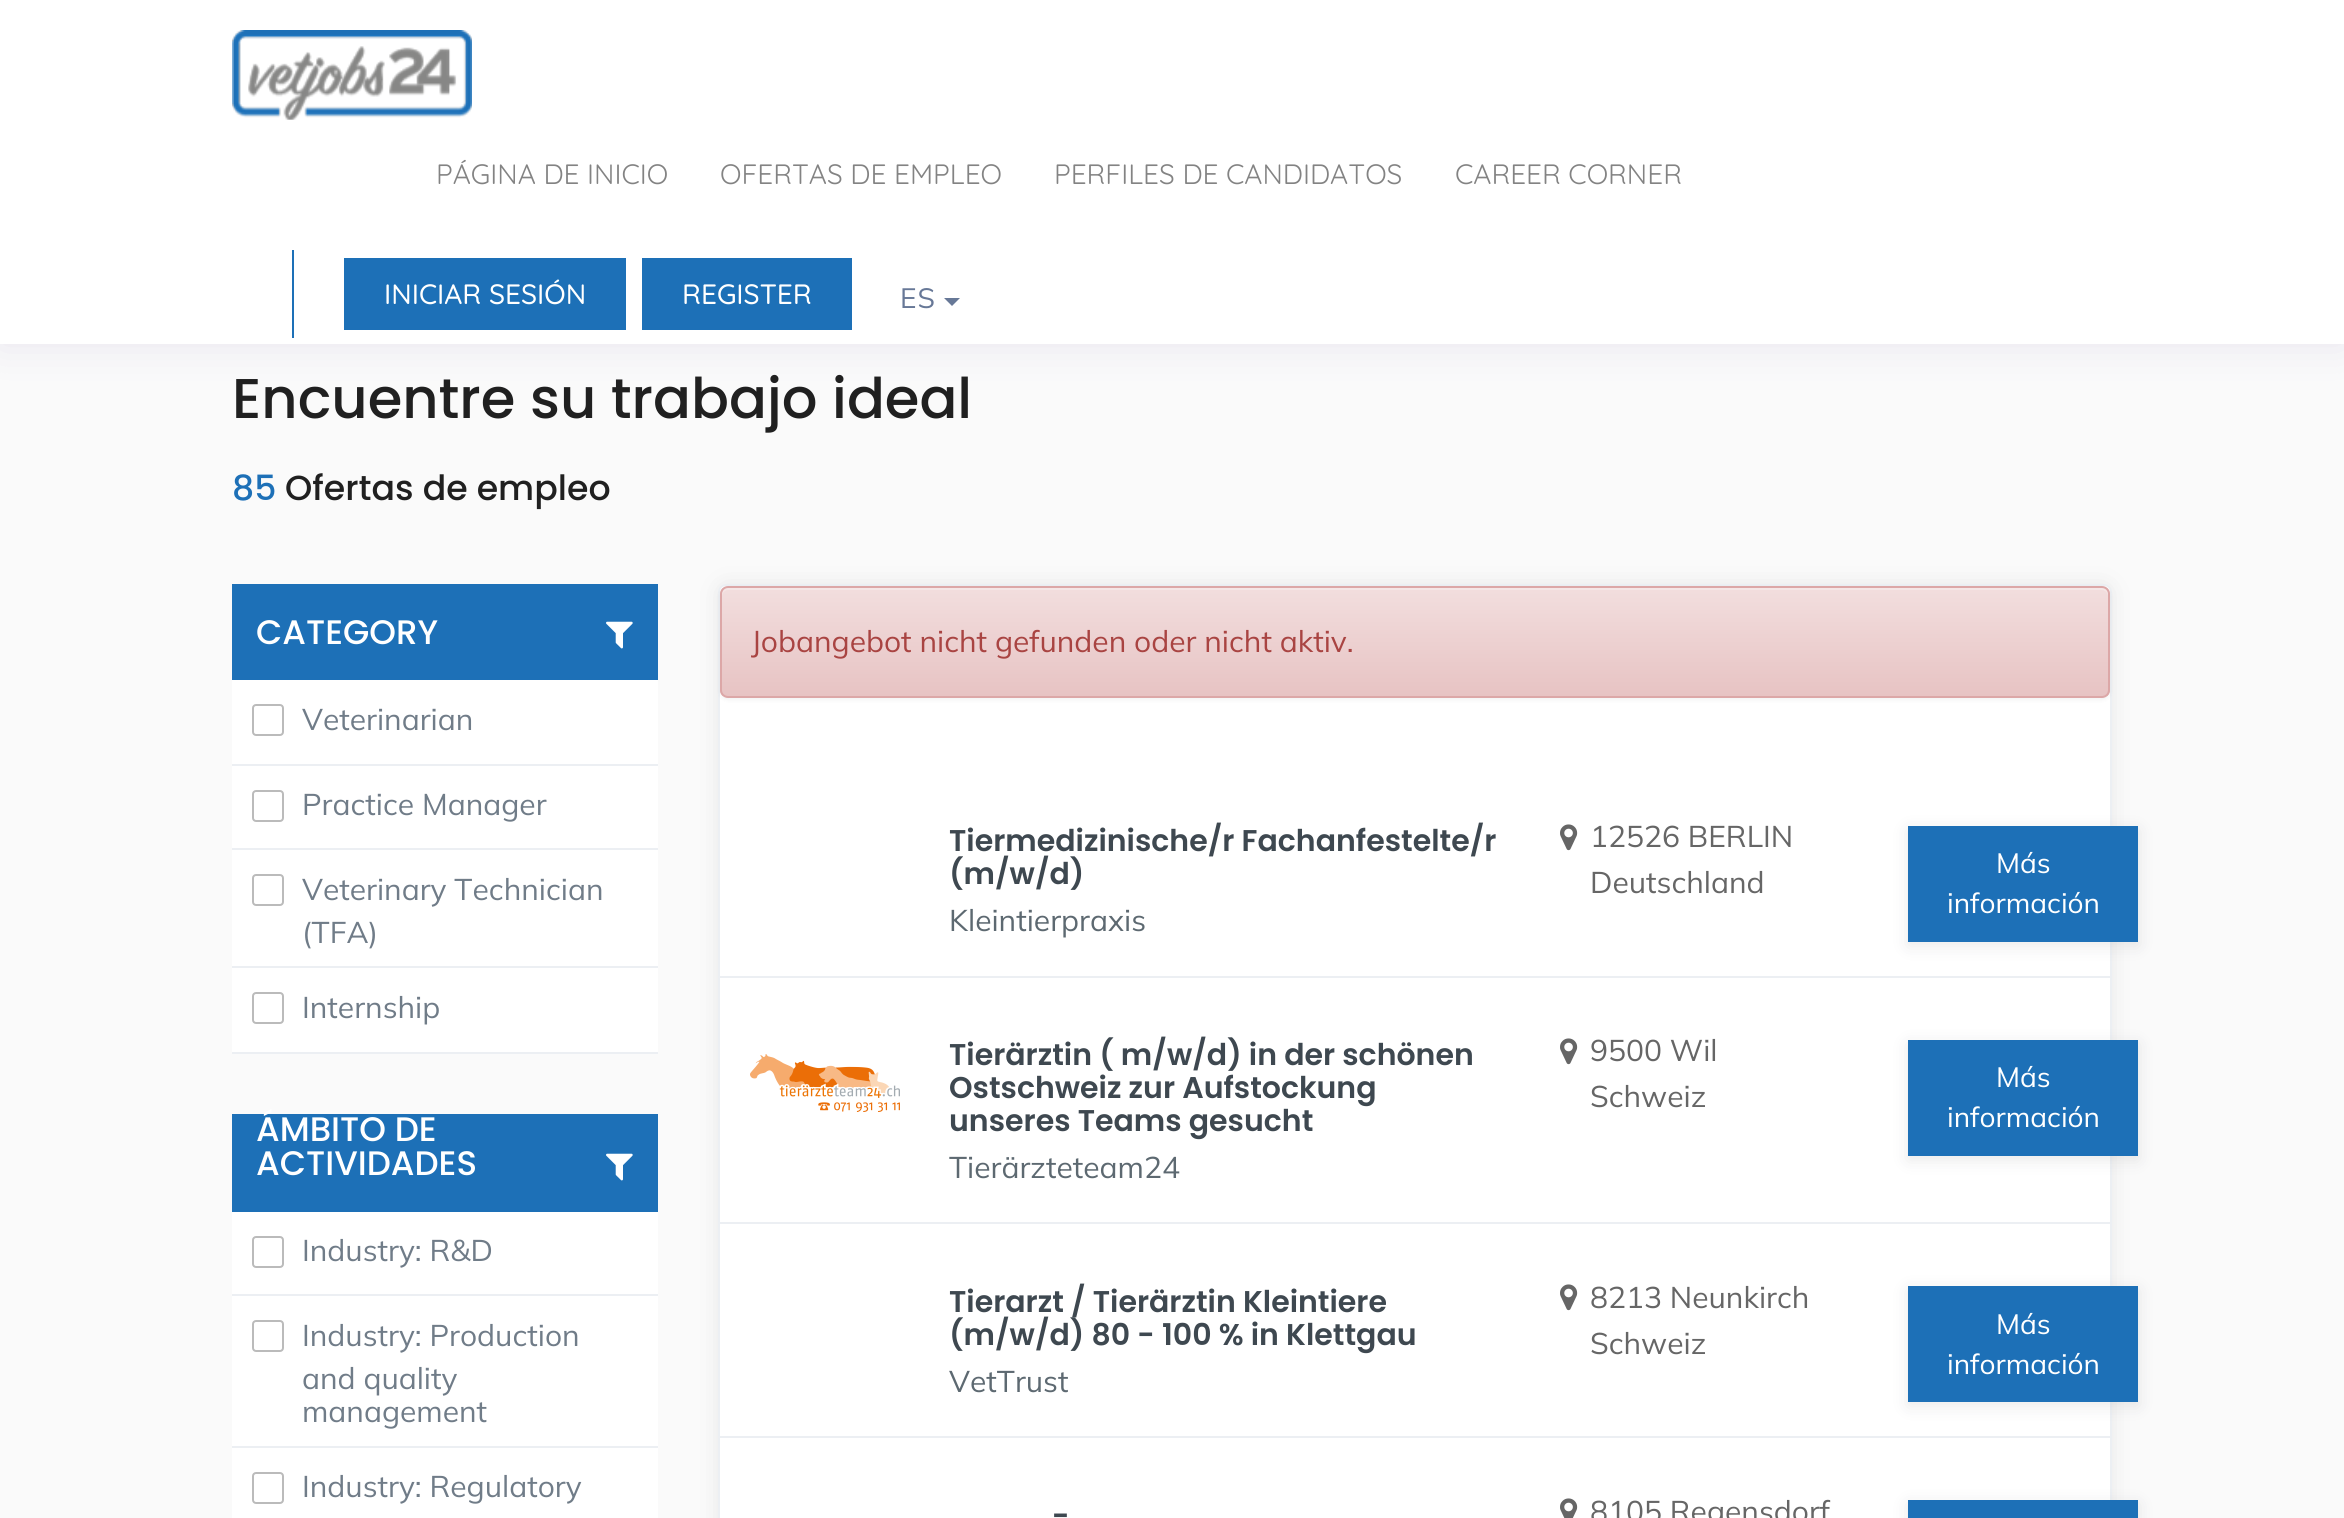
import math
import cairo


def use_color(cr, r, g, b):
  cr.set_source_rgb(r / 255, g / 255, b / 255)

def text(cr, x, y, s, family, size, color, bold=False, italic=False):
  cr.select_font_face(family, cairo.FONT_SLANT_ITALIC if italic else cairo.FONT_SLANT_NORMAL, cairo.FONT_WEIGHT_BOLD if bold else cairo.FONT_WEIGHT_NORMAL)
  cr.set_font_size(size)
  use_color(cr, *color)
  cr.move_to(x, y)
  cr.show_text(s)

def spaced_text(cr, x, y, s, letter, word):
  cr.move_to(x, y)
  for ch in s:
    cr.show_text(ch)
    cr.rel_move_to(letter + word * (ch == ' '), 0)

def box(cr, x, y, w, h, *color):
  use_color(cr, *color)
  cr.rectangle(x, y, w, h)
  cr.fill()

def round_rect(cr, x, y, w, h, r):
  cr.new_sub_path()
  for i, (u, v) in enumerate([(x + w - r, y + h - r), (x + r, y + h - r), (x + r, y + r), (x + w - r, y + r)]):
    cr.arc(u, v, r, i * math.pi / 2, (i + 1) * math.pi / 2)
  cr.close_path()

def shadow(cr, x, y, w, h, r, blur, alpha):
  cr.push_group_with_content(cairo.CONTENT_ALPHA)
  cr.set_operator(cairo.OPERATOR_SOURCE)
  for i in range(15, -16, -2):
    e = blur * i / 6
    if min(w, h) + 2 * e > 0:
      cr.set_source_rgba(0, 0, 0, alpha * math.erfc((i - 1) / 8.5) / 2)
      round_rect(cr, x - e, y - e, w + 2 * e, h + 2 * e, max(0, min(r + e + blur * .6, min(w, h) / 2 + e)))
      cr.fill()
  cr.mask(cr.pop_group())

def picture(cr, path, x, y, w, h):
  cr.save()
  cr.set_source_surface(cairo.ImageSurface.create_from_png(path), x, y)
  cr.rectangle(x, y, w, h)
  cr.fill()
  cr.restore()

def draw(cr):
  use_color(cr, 250, 250, 250)
  cr.paint()
  use_color(cr, 62, 28, 131)
  shadow(cr, 0, 0, 2344, 344, 0, 20, 0.1)
  box(cr, 0, 0, 2344, 344, 255, 255, 255)
  picture(cr, "img_01.png", 232, 30, 240, 90)
  box(cr, 292, 250, 2, 88, 29, 112, 183)
  box(cr, 344, 258, 282, 72, 29, 112, 183)
  box(cr, 642, 258, 210, 72, 29, 112, 183)
  use_color(cr, 103, 120, 151)
  cr.new_path()
  cr.move_to(944, 298)
  cr.line_to(960, 298)
  cr.line_to(952, 306)
  cr.close_path()
  cr.fill()
  box(cr, 232, 680, 426, 372, 255, 255, 255)
  box(cr, 232, 584, 426, 96, 29, 112, 183)
  picture(cr, "img_02.png", 606, 621, 27, 28)
  box(cr, 232, 764, 426, 2, 236, 239, 243)
  round_rect(cr, 253, 705, 30, 30, 3)
  use_color(cr, 187, 187, 187)
  cr.stroke()
  box(cr, 232, 848, 426, 2, 236, 239, 243)
  round_rect(cr, 253, 791, 30, 30, 3)
  use_color(cr, 187, 187, 187)
  cr.stroke()
  box(cr, 232, 966, 426, 2, 236, 239, 243)
  round_rect(cr, 253, 875, 30, 30, 3)
  use_color(cr, 187, 187, 187)
  cr.stroke()
  box(cr, 232, 1052, 426, 2, 236, 239, 243)
  round_rect(cr, 253, 993, 30, 30, 3)
  use_color(cr, 187, 187, 187)
  cr.stroke()
  box(cr, 232, 1212, 426, 306, 255, 255, 255)
  box(cr, 232, 1114, 426, 98, 29, 112, 183)
  picture(cr, "img_02.png", 606, 1153, 27, 28)
  box(cr, 232, 1294, 426, 2, 236, 239, 243)
  round_rect(cr, 253, 1237, 30, 30, 3)
  use_color(cr, 187, 187, 187)
  cr.stroke()
  box(cr, 232, 1446, 426, 2, 236, 239, 243)
  round_rect(cr, 253, 1321, 30, 30, 3)
  use_color(cr, 187, 187, 187)
  cr.stroke()
  round_rect(cr, 253, 1473, 30, 30, 3)
  cr.stroke()
  use_color(cr, 64, 65, 67)
  shadow(cr, 718, 584, 1394, 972, 8, 10, 0.1)
  use_color(cr, 255, 255, 255)
  round_rect(cr, 719, 585, 1392, 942, 7)
  cr.fill_preserve()
  use_color(cr, 236, 239, 243)
  cr.stroke()
  use_color(cr, 0, 0, 0)
  shadow(cr, 720, 588, 1390, 112, 8, 2, 0.05)
  cr.save()
  round_rect(cr, 720, 586, 1390, 112, 8)
  cr.clip()
  gradient = cairo.LinearGradient(1415, 588, 1415, 696)
  gradient.add_color_stop_rgba(0, 0.949, 0.871, 0.871, 1)
  gradient.add_color_stop_rgba(1, 0.906, 0.765, 0.765, 1)
  cr.set_source(gradient)
  cr.rectangle(720, 588, 1390, 108)
  cr.fill()
  cr.restore()
  use_color(cr, 245, 230, 230)
  cr.new_path()
  cr.move_to(728, 590)
  cr.line_to(2102, 590)
  cr.curve_to(2105, 590, 2108, 593, 2108, 596)
  cr.line_to(2108, 594)
  cr.curve_to(2108, 591, 2105, 588, 2102, 588)
  cr.line_to(728, 588)
  cr.curve_to(725, 588, 722, 591, 722, 594)
  cr.line_to(722, 596)
  cr.curve_to(722, 593, 725, 590, 728, 590)
  cr.close_path()
  cr.fill()
  round_rect(cr, 721, 587, 1388, 110, 7)
  use_color(cr, 220, 167, 167)
  cr.stroke()
  box(cr, 720, 976, 1390, 2, 236, 239, 243)
  picture(cr, "img_03.png", 1560, 824, 18, 27)
  use_color(cr, 102, 103, 107)
  shadow(cr, 1908, 830, 230, 116, 0, 8, 0.15)
  box(cr, 1908, 826, 230, 116, 29, 112, 183)
  box(cr, 720, 1222, 1390, 2, 236, 239, 243)
  picture(cr, "img_04.png", 750, 1054, 150, 58)
  picture(cr, "img_03.png", 1560, 1038, 18, 27)
  use_color(cr, 102, 103, 107)
  shadow(cr, 1908, 1044, 230, 116, 0, 8, 0.15)
  box(cr, 1908, 1040, 230, 116, 29, 112, 183)
  box(cr, 720, 1436, 1390, 2, 236, 239, 243)
  picture(cr, "img_03.png", 1560, 1284, 18, 27)
  use_color(cr, 102, 103, 107)
  shadow(cr, 1908, 1290, 230, 116, 0, 8, 0.15)
  box(cr, 1908, 1286, 230, 116, 29, 112, 183)
  picture(cr, "img_05.png", 1560, 1498, 18, 20)
  use_color(cr, 102, 103, 107)
  shadow(cr, 1908, 1504, 230, 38, 0, 8, 0.15)
  box(cr, 1908, 1500, 230, 18, 29, 112, 183)
  text(cr, 436, 184, "PÁGINA DE INICIO", "Quicksand", 28, (131, 131, 131))
  text(cr, 720, 184, "OFERTAS DE EMPLEO", "Quicksand", 28, (131, 131, 131))
  text(cr, 1054, 184, "PERFILES DE CANDIDATOS", "Quicksand", 28, (131, 131, 131))
  text(cr, 1455, 184, "CAREER CORNER", "Quicksand", 28, (131, 131, 131))
  text(cr, 384, 304, "INICIAR SESIÓN", "Quicksand Medium", 28, (255, 255, 255))
  text(cr, 682, 304, "REGISTER", "Quicksand Medium", 28, (255, 255, 255))
  cr.select_font_face("Mulish ExtraLight")
  use_color(cr, 103, 120, 151)
  spaced_text(cr, 900, 308, "ES", 1, 0)
  text(cr, 232, 418, "Encuentre su trabajo ideal", "Poppins Medium", 56, (32, 32, 32))
  text(cr, 232, 500, "85", "Poppins Medium", 34.75, (29, 112, 183))
  text(cr, 285, 500, "Ofertas de empleo", "Poppins Medium", 34.75, (32, 32, 32))
  text(cr, 256, 644, "CATEGORY", "Poppins Medium", 34, (255, 255, 255))
  text(cr, 302, 730, "Veterinarian", "Mulish ExtraLight", 30, (112, 124, 136))
  text(cr, 302, 815, "Practice Manager", "Mulish ExtraLight", 30, (112, 124, 136))
  text(cr, 302, 900, "Veterinary Technician", "Mulish ExtraLight", 30, (112, 124, 136))
  text(cr, 302, 943, "(TFA)", "Mulish ExtraLight", 30, (112, 124, 136))
  text(cr, 302, 1018, "Internship", "Mulish ExtraLight", 30, (112, 124, 136))
  text(cr, 256, 1141, "ÁMBITO DE", "Poppins Medium", 34, (255, 255, 255))
  text(cr, 256, 1175, "ACTIVIDADES", "Poppins Medium", 34, (255, 255, 255))
  text(cr, 302, 1261, "Industry: R&D", "Mulish ExtraLight", 30, (112, 124, 136))
  text(cr, 302, 1346, "Industry: Production", "Mulish ExtraLight", 30, (112, 124, 136))
  text(cr, 302, 1389, "and quality", "Mulish ExtraLight", 30, (112, 124, 136))
  text(cr, 302, 1422, "management", "Mulish ExtraLight", 30, (112, 124, 136))
  text(cr, 302, 1497, "Industry: Regulatory", "Mulish ExtraLight", 30, (112, 124, 136))
  text(cr, 751, 652, "Jobangebot nicht gefunden oder nicht aktiv.", "Mulish ExtraLight", 30, (169, 68, 66))
  text(cr, 949, 851, "Tiermedizinische/r Fachanfestelte/r", "Poppins SemiBold", 30, (62, 72, 80))
  text(cr, 949, 884, "(m/w/d)", "Poppins SemiBold", 30, (62, 72, 80))
  text(cr, 949, 931, "Kleintierpraxis", "Mulish ExtraLight", 30, (93, 105, 113))
  text(cr, 1590, 847, "12526 BERLIN", "Mulish ExtraLight", 30, (102, 102, 102))
  text(cr, 1590, 893, "Deutschland", "Mulish ExtraLight", 30, (102, 102, 102))
  text(cr, 1996, 873, "Más", "Mulish ExtraLight", 28, (255, 255, 255))
  text(cr, 1947, 913, "información", "Mulish ExtraLight", 28, (255, 255, 255))
  text(cr, 949, 1065, "Tierärztin ( m/w/d) in der schönen", "Poppins SemiBold", 30, (62, 72, 80))
  text(cr, 949, 1098, "Ostschweiz zur Aufstockung", "Poppins SemiBold", 30, (62, 72, 80))
  text(cr, 949, 1131, "unseres Teams gesucht", "Poppins SemiBold", 30, (62, 72, 80))
  text(cr, 949, 1178, "Tierärzteteam24", "Mulish ExtraLight", 30, (93, 105, 113))
  text(cr, 1590, 1061, "9500 Wil", "Mulish ExtraLight", 30, (102, 102, 102))
  text(cr, 1590, 1107, "Schweiz", "Mulish ExtraLight", 30, (102, 102, 102))
  text(cr, 1996, 1087, "Más", "Mulish ExtraLight", 28, (255, 255, 255))
  text(cr, 1947, 1127, "información", "Mulish ExtraLight", 28, (255, 255, 255))
  text(cr, 949, 1312, "Tierarzt / Tierärztin Kleintiere", "Poppins SemiBold", 30, (62, 72, 80))
  text(cr, 949, 1345, "(m/w/d) 80 - 100 % in Klettgau", "Poppins SemiBold", 30, (62, 72, 80))
  text(cr, 949, 1392, "VetTrust", "Mulish ExtraLight", 30, (93, 105, 113))
  text(cr, 1590, 1308, "8213 Neunkirch", "Mulish ExtraLight", 30, (102, 102, 102))
  text(cr, 1590, 1354, "Schweiz", "Mulish ExtraLight", 30, (102, 102, 102))
  text(cr, 1996, 1334, "Más", "Mulish ExtraLight", 28, (255, 255, 255))
  text(cr, 1947, 1374, "información", "Mulish ExtraLight", 28, (255, 255, 255))
  text(cr, 1052, 1526, "-", "Poppins SemiBold", 30, (62, 72, 80))
  text(cr, 1590, 1522, "8105 Regensdorf", "Mulish ExtraLight", 30, (102, 102, 102))


surface = cairo.ImageSurface(cairo.FORMAT_RGB24, 2344, 1518)
cr = cairo.Context(surface)
options = cairo.FontOptions()
options.set_hint_metrics(cairo.HINT_METRICS_OFF)
options.set_hint_style(cairo.HINT_STYLE_NONE)
cr.set_font_options(options)
cr.set_miter_limit(4)
draw(cr)
surface.write_to_png("out.png")
